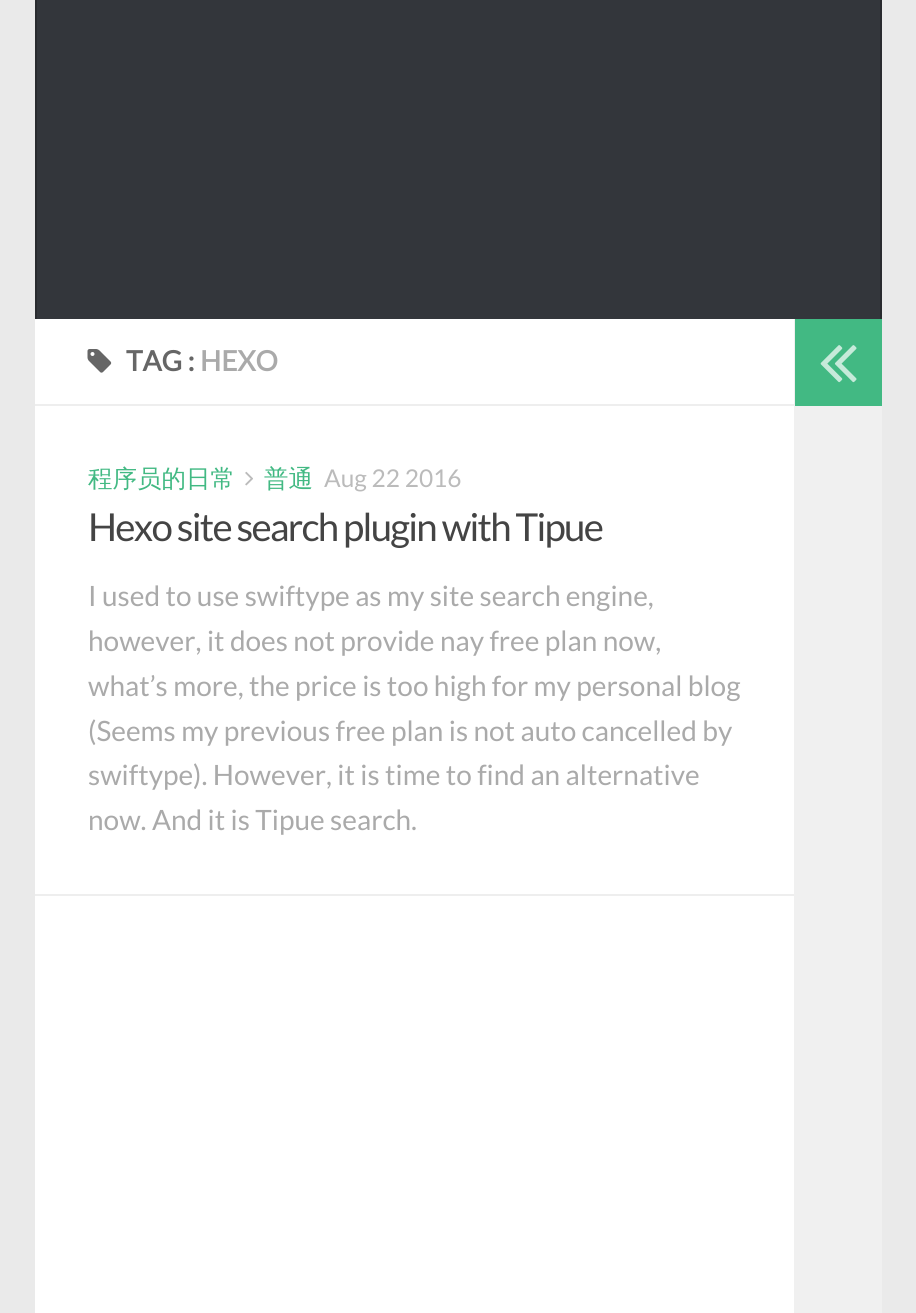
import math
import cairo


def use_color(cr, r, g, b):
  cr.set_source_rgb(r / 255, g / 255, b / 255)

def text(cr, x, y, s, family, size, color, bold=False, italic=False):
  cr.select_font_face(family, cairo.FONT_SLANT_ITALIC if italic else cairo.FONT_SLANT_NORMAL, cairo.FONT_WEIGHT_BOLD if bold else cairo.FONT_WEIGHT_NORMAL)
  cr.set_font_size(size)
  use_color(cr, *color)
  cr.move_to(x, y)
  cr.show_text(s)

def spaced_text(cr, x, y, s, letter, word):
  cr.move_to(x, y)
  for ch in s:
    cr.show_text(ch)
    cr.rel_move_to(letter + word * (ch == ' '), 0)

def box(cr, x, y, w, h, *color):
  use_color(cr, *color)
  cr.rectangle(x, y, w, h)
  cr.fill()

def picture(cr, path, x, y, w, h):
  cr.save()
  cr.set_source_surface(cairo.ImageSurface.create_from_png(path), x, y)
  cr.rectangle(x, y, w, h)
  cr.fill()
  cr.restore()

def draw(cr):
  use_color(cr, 234, 234, 234)
  cr.paint()
  box(cr, 37, 0, 843, 319, 51, 54, 59)
  box(cr, 880, 0, 2, 319, 41, 43, 47)
  box(cr, 35, 0, 2, 319, 41, 43, 47)
  box(cr, 35, 319, 759, 994, 255, 255, 255)
  box(cr, 35, 404, 760, 2, 238, 238, 238)
  picture(cr, "img_01.png", 87, 349, 25, 24)
  box(cr, 35, 894, 760, 2, 238, 238, 238)
  picture(cr, "img_02.png", 245, 471, 8, 15)
  box(cr, 794, 319, 88, 994, 240, 240, 240)
  box(cr, 795, 319, 87, 87, 66, 185, 131)
  picture(cr, "img_03.png", 820, 345, 37, 38)
  text(cr, 126, 371, "TAG :", "Lato", 28, (102, 102, 102), bold=True)
  text(cr, 200, 371, "HEXO", "Lato", 28, (170, 170, 170), bold=True)
  text(cr, 88, 487, "程序员的日常", "WenQuanYi Zen Hei Medium", 24.5, (66, 185, 131))
  text(cr, 264, 487, "普通", "WenQuanYi Zen Hei Medium", 24.5, (66, 185, 131))
  text(cr, 324, 487, "Aug 22 2016", "Lato", 24.5, (187, 187, 187))
  cr.set_font_size(38.5)
  use_color(cr, 68, 68, 68)
  spaced_text(cr, 88, 541, "Hexo site search plugin with Tipue", -1.75, 0)
  text(cr, 88, 606, "I used to use swiftype as my site search engine,", "Lato", 28, (170, 170, 170))
  text(cr, 88, 651, "however, it does not provide nay free plan now,", "Lato", 28, (170, 170, 170))
  text(cr, 88, 696, "what’s more, the price is too high for my personal blog", "Lato", 28, (170, 170, 170))
  text(cr, 88, 741, "(Seems my previous free plan is not auto cancelled by", "Lato", 28, (170, 170, 170))
  text(cr, 88, 785, "swiftype). However, it is time to find an alternative", "Lato", 28, (170, 170, 170))
  text(cr, 88, 830, "now. And it is Tipue search.", "Lato", 28, (170, 170, 170))


surface = cairo.ImageSurface(cairo.FORMAT_RGB24, 916, 1313)
cr = cairo.Context(surface)
options = cairo.FontOptions()
options.set_hint_metrics(cairo.HINT_METRICS_OFF)
options.set_hint_style(cairo.HINT_STYLE_NONE)
cr.set_font_options(options)
cr.set_miter_limit(4)
draw(cr)
surface.write_to_png("out.png")
